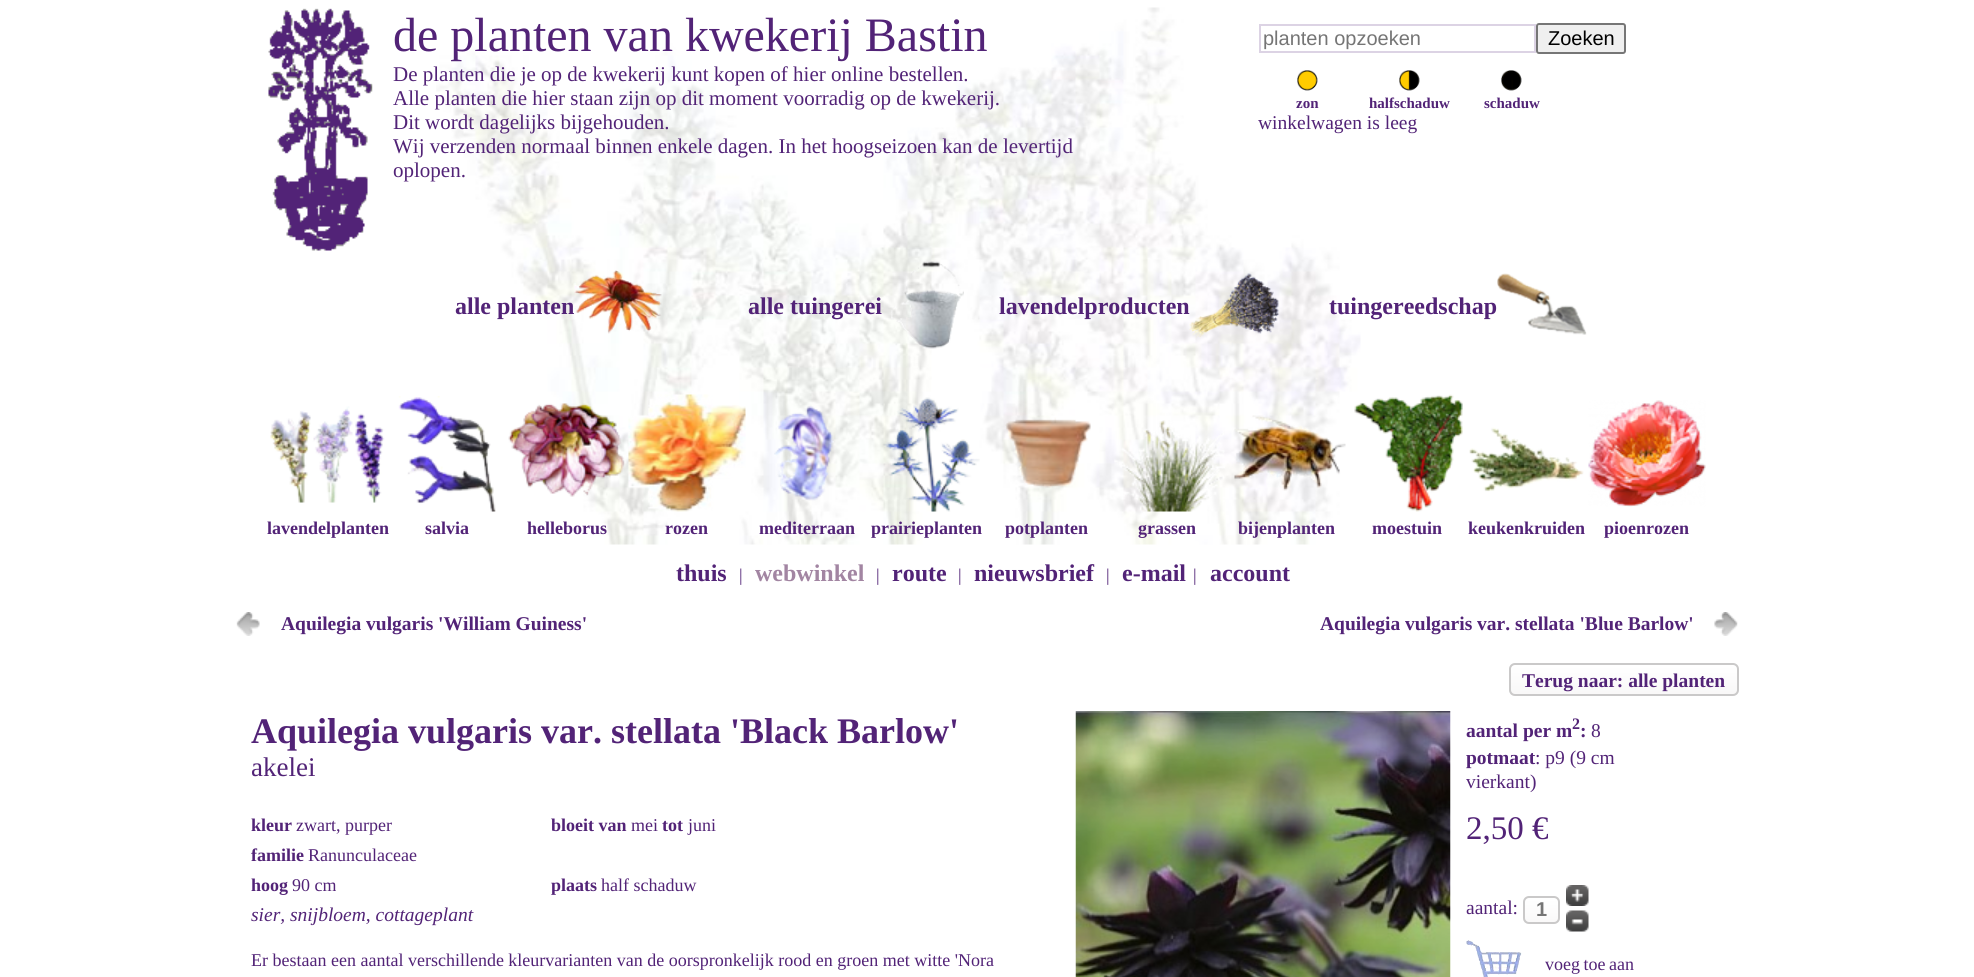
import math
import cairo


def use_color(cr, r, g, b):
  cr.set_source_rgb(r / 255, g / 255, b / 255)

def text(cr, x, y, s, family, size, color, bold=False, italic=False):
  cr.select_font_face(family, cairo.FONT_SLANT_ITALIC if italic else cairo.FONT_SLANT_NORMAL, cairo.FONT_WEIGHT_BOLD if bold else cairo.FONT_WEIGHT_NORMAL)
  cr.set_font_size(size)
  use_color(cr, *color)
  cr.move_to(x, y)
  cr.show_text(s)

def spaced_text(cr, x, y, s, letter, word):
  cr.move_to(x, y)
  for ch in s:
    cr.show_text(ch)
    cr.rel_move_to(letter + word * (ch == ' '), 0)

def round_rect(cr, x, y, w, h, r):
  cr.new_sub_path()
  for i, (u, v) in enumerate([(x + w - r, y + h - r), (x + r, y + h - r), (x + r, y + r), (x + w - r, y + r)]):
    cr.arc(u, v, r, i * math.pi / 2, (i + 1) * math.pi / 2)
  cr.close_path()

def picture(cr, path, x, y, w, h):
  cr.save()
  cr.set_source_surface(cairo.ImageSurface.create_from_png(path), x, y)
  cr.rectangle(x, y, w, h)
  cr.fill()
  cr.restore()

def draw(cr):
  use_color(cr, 255, 255, 255)
  cr.paint()
  picture(cr, "img_01.png", 436, 7, 925, 538)
  picture(cr, "img_02.png", 268, 8, 105, 243)
  cr.rectangle(1260, 25, 275, 27)
  use_color(cr, 220, 211, 228)
  cr.stroke()
  use_color(cr, 239, 239, 239)
  round_rect(cr, 1537, 24, 88, 29, 2)
  cr.fill_preserve()
  use_color(cr, 118, 118, 118)
  cr.stroke()
  picture(cr, "img_03.png", 1297, 70, 21, 21)
  picture(cr, "img_04.png", 1399, 70, 21, 21)
  picture(cr, "img_05.png", 1501, 70, 21, 21)
  picture(cr, "img_06.png", 574, 270, 88, 64)
  picture(cr, "img_07.png", 891, 261, 73, 88)
  picture(cr, "img_08.png", 1189, 273, 91, 65)
  picture(cr, "img_09.png", 1497, 273, 90, 62)
  picture(cr, "img_10.png", 270, 406, 115, 97)
  picture(cr, "img_11.png", 398, 396, 98, 116)
  picture(cr, "img_12.png", 508, 403, 117, 94)
  picture(cr, "img_13.png", 628, 394, 118, 118)
  picture(cr, "img_14.png", 774, 406, 60, 95)
  picture(cr, "img_15.png", 883, 397, 97, 115)
  picture(cr, "img_16.png", 1005, 417, 86, 71)
  picture(cr, "img_17.png", 1114, 420, 111, 92)
  picture(cr, "img_18.png", 1234, 415, 112, 76)
  picture(cr, "img_19.png", 1354, 394, 109, 118)
  picture(cr, "img_20.png", 1469, 427, 115, 65)
  picture(cr, "img_21.png", 1588, 400, 118, 107)
  picture(cr, "img_22.png", 236, 612, 24, 24)
  picture(cr, "img_23.png", 1714, 612, 24, 24)
  picture(cr, "img_24.png", 1509, 664, 230, 32)
  round_rect(cr, 1510, 664, 228, 31, 5)
  use_color(cr, 202, 201, 201)
  cr.stroke()
  picture(cr, "img_25.png", 1075, 711, 376, 266)
  picture(cr, "img_26.png", 1523, 897, 37, 27)
  round_rect(cr, 1524, 897, 35, 26, 5)
  cr.stroke()
  picture(cr, "img_27.png", 1566, 885, 23, 21)
  picture(cr, "img_28.png", 1566, 910, 23, 22)
  picture(cr, "img_29.png", 1466, 940, 56, 37)
  text(cr, 393, 51, "de planten van kwekerij Bastin", "Liberation Serif", 48, (82, 35, 119))
  text(cr, 393, 81, "De planten die je op de kwekerij kunt kopen of hier online bestellen.", "Liberation Serif", 21, (82, 35, 119))
  text(cr, 393, 105, "Alle planten die hier staan zijn op dit moment voorradig op de kwekerij.", "Liberation Serif", 21, (82, 35, 119))
  text(cr, 393, 129, "Dit wordt dagelijks bijgehouden.", "Liberation Serif", 21, (82, 35, 119))
  text(cr, 393, 153, "Wij verzenden normaal binnen enkele dagen. In het hoogseizoen kan de levertijd", "Liberation Serif", 21, (82, 35, 119))
  text(cr, 393, 177, "oplopen.", "Liberation Serif", 21, (82, 35, 119))
  text(cr, 1263, 45, "planten opzoeken", "Liberation Sans", 20, (117, 117, 117))
  text(cr, 1548, 45, "Zoeken", "Liberation Sans", 20, (0, 0, 0))
  text(cr, 1296, 108, "zon", "Liberation Serif", 15, (82, 35, 119), bold=True)
  text(cr, 1369, 108, "halfschaduw", "Liberation Serif", 15, (82, 35, 119), bold=True)
  text(cr, 1484, 108, "schaduw", "Liberation Serif", 15, (82, 35, 119), bold=True)
  text(cr, 1258, 129, "winkelwagen is leeg", "Liberation Serif", 19.5, (82, 35, 119))
  text(cr, 455, 314, "alle planten", "Liberation Serif", 24, (82, 35, 119), bold=True)
  text(cr, 748, 314, "alle tuingerei", "Liberation Serif", 24, (82, 35, 119), bold=True)
  text(cr, 999, 314, "lavendelproducten", "Liberation Serif", 24, (82, 35, 119), bold=True)
  text(cr, 1329, 314, "tuingereedschap", "Liberation Serif", 24, (82, 35, 119), bold=True)
  text(cr, 267, 534, "lavendelplanten", "Liberation Serif", 18, (82, 35, 119), bold=True)
  text(cr, 425, 534, "salvia", "Liberation Serif", 18, (82, 35, 119), bold=True)
  text(cr, 527, 534, "helleborus", "Liberation Serif", 18, (82, 35, 119), bold=True)
  text(cr, 665, 534, "rozen", "Liberation Serif", 18, (82, 35, 119), bold=True)
  text(cr, 759, 534, "mediterraan", "Liberation Serif", 18, (82, 35, 119), bold=True)
  text(cr, 871, 534, "prairieplanten", "Liberation Serif", 18, (82, 35, 119), bold=True)
  text(cr, 1005, 534, "potplanten", "Liberation Serif", 18, (82, 35, 119), bold=True)
  text(cr, 1138, 534, "grassen", "Liberation Serif", 18, (82, 35, 119), bold=True)
  text(cr, 1238, 534, "bijenplanten", "Liberation Serif", 18, (82, 35, 119), bold=True)
  text(cr, 1372, 534, "moestuin", "Liberation Serif", 18, (82, 35, 119), bold=True)
  text(cr, 1468, 534, "keukenkruiden", "Liberation Serif", 18, (82, 35, 119), bold=True)
  text(cr, 1604, 534, "pioenrozen", "Liberation Serif", 18, (82, 35, 119), bold=True)
  text(cr, 676, 581, "thuis", "Liberation Serif", 24, (82, 35, 119), bold=True)
  text(cr, 739, 581, "|", "Liberation Serif", 18, (82, 35, 119))
  text(cr, 755, 581, "webwinkel", "Liberation Serif", 24, (162, 133, 162), bold=True)
  text(cr, 876, 581, "|", "Liberation Serif", 18, (82, 35, 119))
  text(cr, 892, 581, "route", "Liberation Serif", 24, (82, 35, 119), bold=True)
  text(cr, 958, 581, "|", "Liberation Serif", 18, (82, 35, 119))
  text(cr, 974, 581, "nieuwsbrief", "Liberation Serif", 24, (82, 35, 119), bold=True)
  text(cr, 1106, 581, "|", "Liberation Serif", 18, (82, 35, 119))
  text(cr, 1122, 581, "e-mail", "Liberation Serif", 24, (82, 35, 119), bold=True)
  text(cr, 1193, 581, "|", "Liberation Serif", 18, (82, 35, 119))
  text(cr, 1210, 581, "account", "Liberation Serif", 24, (82, 35, 119), bold=True)
  text(cr, 281, 630, "Aquilegia vulgaris 'William Guiness'", "Liberation Serif", 19.5, (82, 35, 119), bold=True)
  text(cr, 1320, 630, "Aquilegia vulgaris var. stellata 'Blue Barlow'", "Liberation Serif", 19.5, (82, 35, 119), bold=True)
  text(cr, 1522, 687, "Terug naar: alle planten", "Liberation Serif", 19.5, (82, 35, 119), bold=True)
  text(cr, 251, 743, "Aquilegia vulgaris var. stellata 'Black Barlow'", "Liberation Serif", 36, (82, 35, 119), bold=True)
  text(cr, 251, 776, "akelei", "Liberation Serif", 27, (82, 35, 119))
  text(cr, 251, 831, "kleur", "Liberation Serif", 18, (82, 35, 119), bold=True)
  text(cr, 296, 831, "zwart, purper", "Liberation Serif", 18, (82, 35, 119))
  text(cr, 551, 831, "bloeit van", "Liberation Serif", 18, (82, 35, 119), bold=True)
  text(cr, 631, 831, "mei", "Liberation Serif", 18, (82, 35, 119))
  text(cr, 662, 831, "tot", "Liberation Serif", 18, (82, 35, 119), bold=True)
  text(cr, 688, 831, "juni", "Liberation Serif", 18, (82, 35, 119))
  text(cr, 251, 861, "familie", "Liberation Serif", 18, (82, 35, 119), bold=True)
  text(cr, 308, 861, "Ranunculaceae", "Liberation Serif", 18, (82, 35, 119))
  text(cr, 251, 891, "hoog", "Liberation Serif", 18, (82, 35, 119), bold=True)
  text(cr, 292, 891, "90 cm", "Liberation Serif", 18, (82, 35, 119))
  text(cr, 551, 891, "plaats", "Liberation Serif", 18, (82, 35, 119), bold=True)
  text(cr, 601, 891, "half schaduw", "Liberation Serif", 18, (82, 35, 119))
  text(cr, 251, 921, "sier, snijbloem, cottageplant", "Liberation Serif", 19.5, (82, 35, 119), italic=True)
  text(cr, 251, 966, "Er bestaan een aantal verschillende kleurvarianten van de oorspronkelijk rood en groen met witte 'Nora", "Liberation Serif", 18, (82, 35, 119))
  text(cr, 1466, 737, "aantal per m", "Liberation Serif", 19.5, (82, 35, 119), bold=True)
  text(cr, 1572, 729, "2", "Liberation Serif", 16, (82, 35, 119), bold=True)
  text(cr, 1580, 737, ":", "Liberation Serif", 19.5, (82, 35, 119), bold=True)
  text(cr, 1591, 737, "8", "Liberation Serif", 19.5, (82, 35, 119))
  text(cr, 1466, 764, "potmaat", "Liberation Serif", 19.5, (82, 35, 119), bold=True)
  text(cr, 1535, 764, ": p9 (9 cm", "Liberation Serif", 19.5, (82, 35, 119))
  text(cr, 1466, 788, "vierkant)", "Liberation Serif", 19.5, (82, 35, 119))
  text(cr, 1466, 839, "2,50 €", "Liberation Serif", 33, (82, 35, 119))
  text(cr, 1466, 914, "aantal:", "Liberation Serif", 19.5, (82, 35, 119))
  text(cr, 1536, 916, "1", "Liberation Sans", 20, (117, 117, 117), bold=True)
  cr.select_font_face("Liberation Serif")
  cr.set_font_size(18)
  use_color(cr, 82, 35, 119)
  spaced_text(cr, 1545, 970, "voeg toe aan", 0, -1)


surface = cairo.ImageSurface(cairo.FORMAT_RGB24, 1974, 977)
cr = cairo.Context(surface)
options = cairo.FontOptions()
options.set_hint_metrics(cairo.HINT_METRICS_OFF)
options.set_hint_style(cairo.HINT_STYLE_NONE)
cr.set_font_options(options)
cr.set_miter_limit(4)
draw(cr)
surface.write_to_png("out.png")
